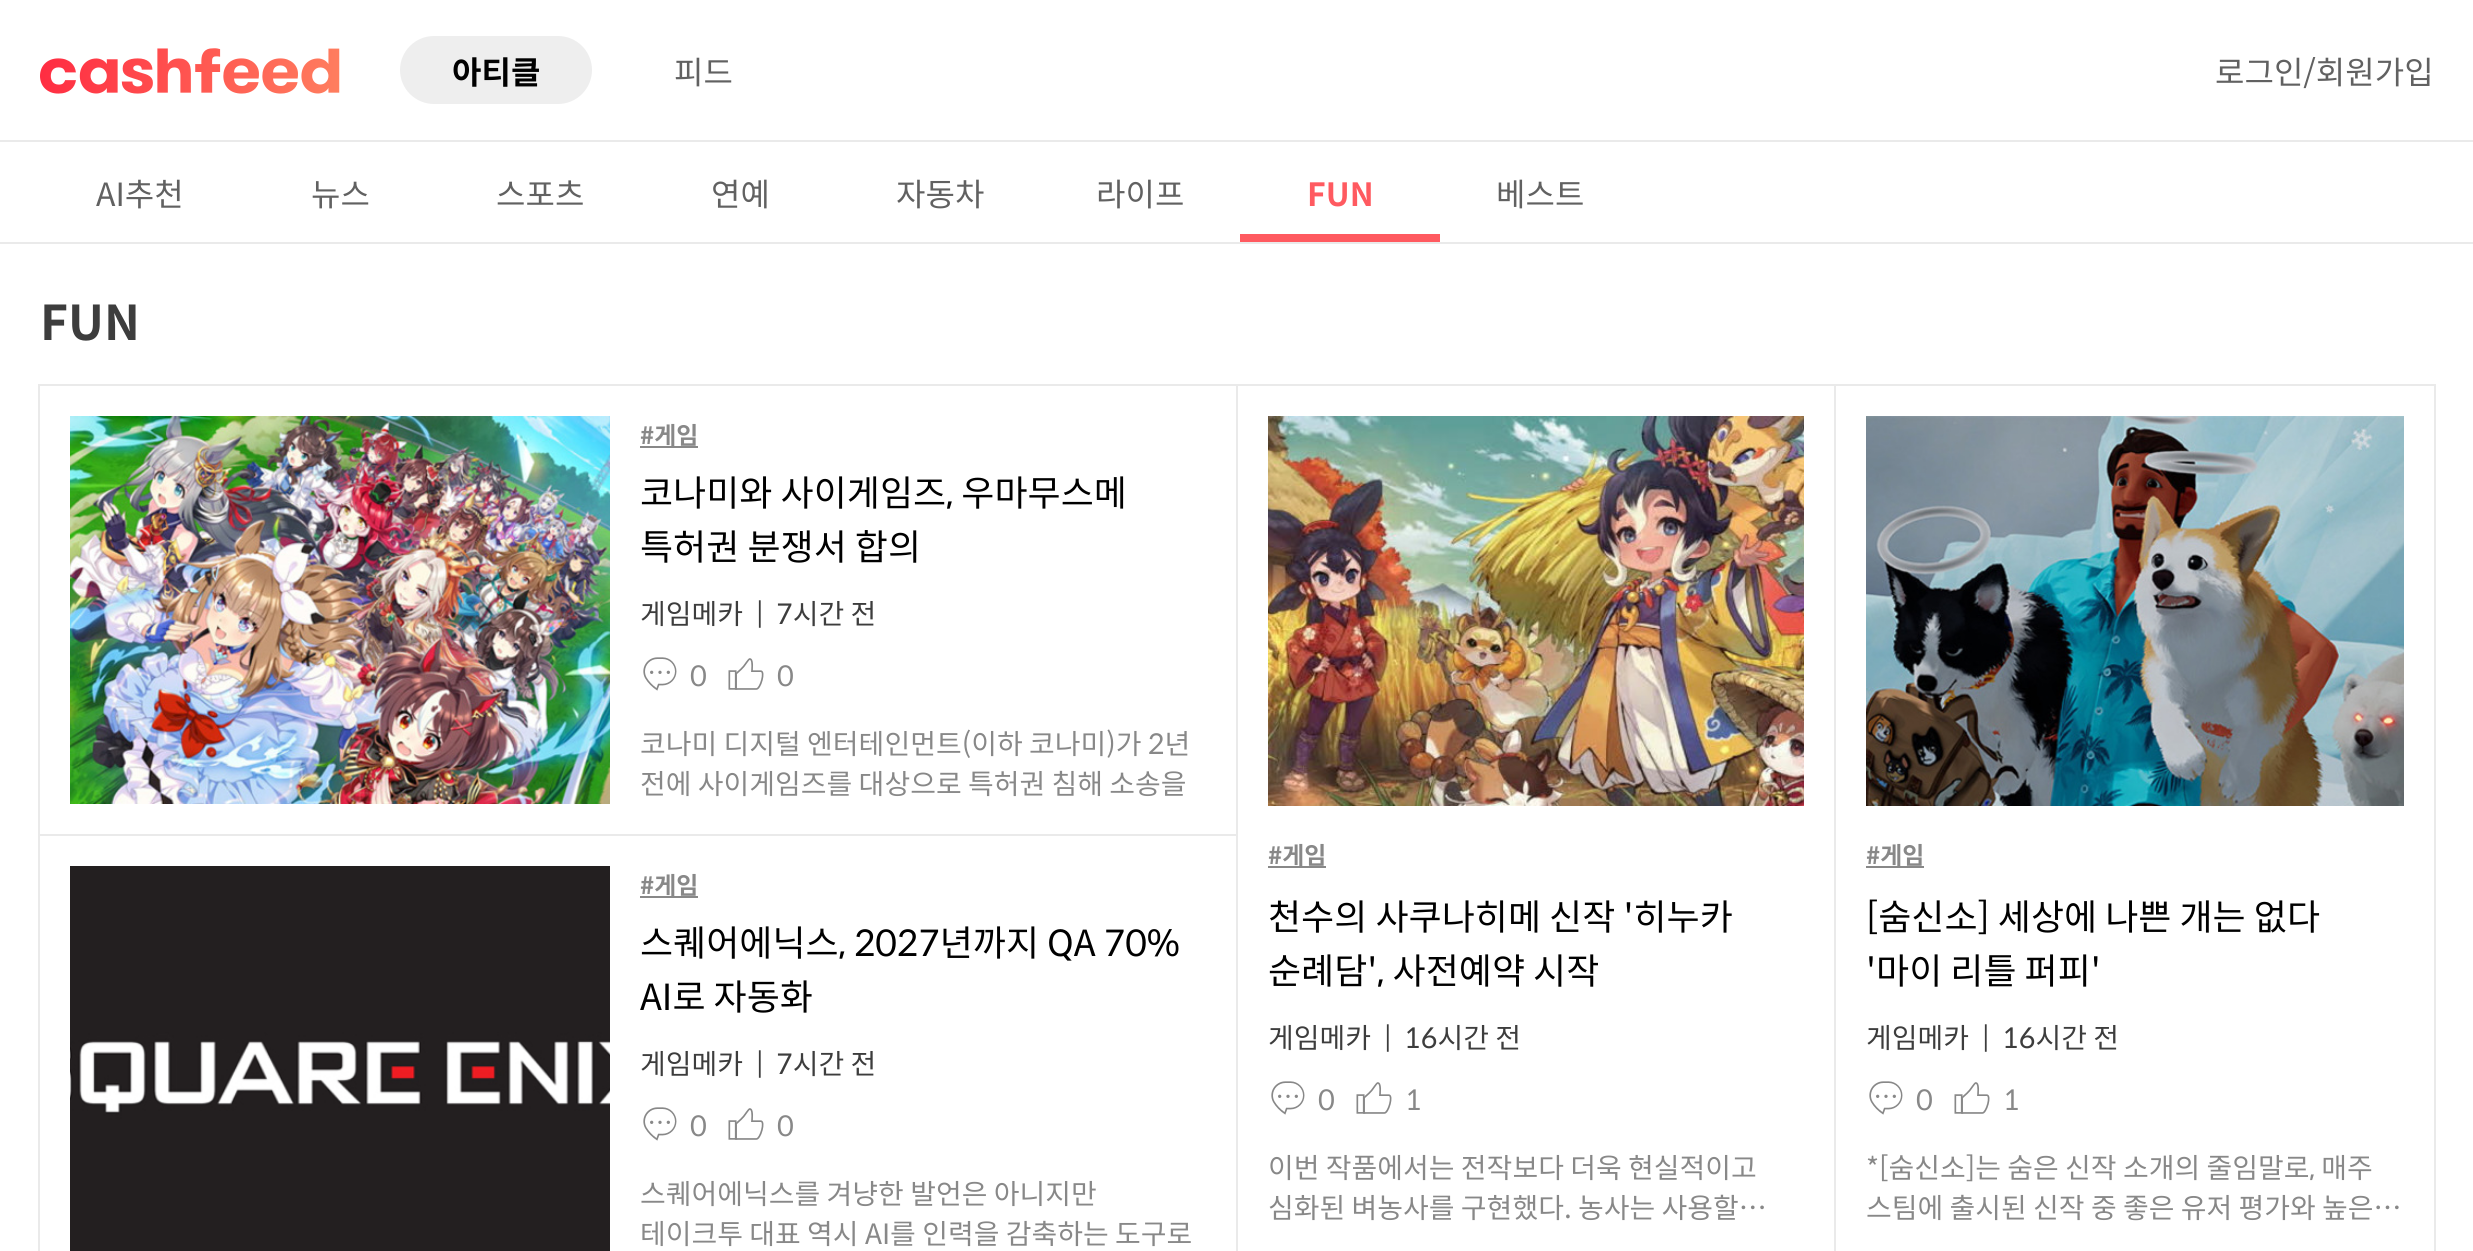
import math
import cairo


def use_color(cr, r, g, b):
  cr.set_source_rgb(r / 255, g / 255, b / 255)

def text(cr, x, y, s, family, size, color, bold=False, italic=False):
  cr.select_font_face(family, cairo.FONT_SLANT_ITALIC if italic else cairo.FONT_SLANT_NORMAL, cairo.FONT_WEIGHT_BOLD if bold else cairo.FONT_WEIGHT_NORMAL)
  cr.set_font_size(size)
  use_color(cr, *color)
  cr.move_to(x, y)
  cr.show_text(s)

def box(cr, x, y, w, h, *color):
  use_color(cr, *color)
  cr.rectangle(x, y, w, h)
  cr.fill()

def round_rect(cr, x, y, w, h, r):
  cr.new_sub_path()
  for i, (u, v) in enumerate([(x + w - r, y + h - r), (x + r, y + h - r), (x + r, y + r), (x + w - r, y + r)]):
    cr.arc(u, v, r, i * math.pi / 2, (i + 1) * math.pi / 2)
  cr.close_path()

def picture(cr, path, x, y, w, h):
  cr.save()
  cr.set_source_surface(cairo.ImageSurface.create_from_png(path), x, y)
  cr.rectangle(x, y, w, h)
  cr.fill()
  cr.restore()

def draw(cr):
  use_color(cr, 255, 255, 255)
  cr.paint()
  box(cr, 0, 140, 2473, 2, 234, 234, 234)
  picture(cr, "img_01.png", 40, 48, 300, 46)
  use_color(cr, 238, 238, 238)
  round_rect(cr, 400, 36, 192, 68, 34)
  cr.fill()
  box(cr, 0, 242, 2473, 2, 234, 234, 234)
  box(cr, 1240, 234, 200, 8, 255, 90, 96)
  box(cr, 40, 834, 1196, 2, 234, 234, 234)
  picture(cr, "img_02.png", 70, 416, 540, 388)
  picture(cr, "img_05.png", 70, 866, 540, 385)
  cr.rectangle(39, 385, 1198, 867)
  cr.stroke()
  box(cr, 640, 446, 58, 2, 136, 136, 136)
  picture(cr, "img_03.png", 643, 657, 34, 34)
  picture(cr, "img_04.png", 728, 658, 36, 32)
  box(cr, 640, 896, 58, 2, 136, 136, 136)
  picture(cr, "img_03.png", 643, 1107, 34, 34)
  picture(cr, "img_04.png", 728, 1108, 36, 32)
  box(cr, 1834, 386, 2, 865, 234, 234, 234)
  picture(cr, "img_06.png", 1268, 416, 536, 390)
  picture(cr, "img_07.png", 1866, 416, 538, 390)
  cr.rectangle(1237, 385, 1198, 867)
  cr.stroke()
  box(cr, 1268, 866, 58, 2, 136, 136, 136)
  picture(cr, "img_03.png", 1271, 1081, 34, 34)
  picture(cr, "img_04.png", 1356, 1082, 36, 32)
  box(cr, 1866, 866, 58, 2, 136, 136, 136)
  picture(cr, "img_03.png", 1869, 1081, 34, 34)
  picture(cr, "img_04.png", 1954, 1082, 36, 32)
  text(cr, 452, 84, "아티클", "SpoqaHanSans", 32, (0, 0, 0), bold=True)
  text(cr, 674, 84, "피드", "SpoqaHanSans", 32, (97, 97, 97))
  text(cr, 2215, 84, "로그인/회원가입", "SpoqaHanSans", 32, (97, 97, 97))
  text(cr, 96, 206, "AI추천", "SpoqaHanSans", 32, (97, 97, 97))
  text(cr, 311, 206, "뉴스", "SpoqaHanSans", 32, (97, 97, 97))
  text(cr, 496, 206, "스포츠", "SpoqaHanSans", 32, (97, 97, 97))
  text(cr, 711, 206, "연예", "SpoqaHanSans", 32, (97, 97, 97))
  text(cr, 896, 206, "자동차", "SpoqaHanSans", 32, (97, 97, 97))
  text(cr, 1096, 206, "라이프", "SpoqaHanSans", 32, (97, 97, 97))
  text(cr, 1307, 206, "FUN", "SpoqaHanSans", 32, (255, 90, 96), bold=True)
  text(cr, 1496, 206, "베스트", "SpoqaHanSans", 32, (97, 97, 97))
  text(cr, 40, 340, "FUN", "SpoqaHanSans", 48, (61, 61, 61), bold=True)
  text(cr, 640, 444, "#게임", "SpoqaHanSans", 24, (136, 136, 136), bold=True)
  text(cr, 640, 506, "코나미와 사이게임즈, 우마무스메", "SpoqaHanSans", 36, (0, 0, 0))
  text(cr, 640, 560, "특허권 분쟁서 합의", "SpoqaHanSans", 36, (0, 0, 0))
  text(cr, 640, 624, "게임메카", "SpoqaHanSans", 28, (61, 61, 61))
  text(cr, 756, 624, "|", "SpoqaHanSans", 28, (61, 61, 61))
  text(cr, 776, 624, "7시간 전", "SpoqaHanSans", 28, (61, 61, 61))
  text(cr, 690, 686, "0", "SpoqaHanSans", 28, (136, 136, 136))
  text(cr, 777, 686, "0", "SpoqaHanSans", 28, (136, 136, 136))
  text(cr, 640, 754, "코나미 디지털 엔터테인먼트(이하 코나미)가 2년", "SpoqaHanSans", 28, (136, 136, 136))
  text(cr, 640, 794, "전에 사이게임즈를 대상으로 특허권 침해 소송을", "SpoqaHanSans", 28, (136, 136, 136))
  text(cr, 640, 894, "#게임", "SpoqaHanSans", 24, (136, 136, 136), bold=True)
  text(cr, 640, 956, "스퀘어에닉스, 2027년까지 QA 70%", "SpoqaHanSans", 36, (0, 0, 0))
  text(cr, 640, 1010, "AI로 자동화", "SpoqaHanSans", 36, (0, 0, 0))
  text(cr, 640, 1074, "게임메카", "SpoqaHanSans", 28, (61, 61, 61))
  text(cr, 756, 1074, "|", "SpoqaHanSans", 28, (61, 61, 61))
  text(cr, 776, 1074, "7시간 전", "SpoqaHanSans", 28, (61, 61, 61))
  text(cr, 690, 1136, "0", "SpoqaHanSans", 28, (136, 136, 136))
  text(cr, 777, 1136, "0", "SpoqaHanSans", 28, (136, 136, 136))
  text(cr, 640, 1204, "스퀘어에닉스를 겨냥한 발언은 아니지만", "SpoqaHanSans", 28, (136, 136, 136))
  text(cr, 640, 1244, "테이크투 대표 역시 AI를 인력을 감축하는 도구로", "SpoqaHanSans", 28, (136, 136, 136))
  text(cr, 1268, 864, "#게임", "SpoqaHanSans", 24, (136, 136, 136), bold=True)
  text(cr, 1268, 930, "천수의 사쿠나히메 신작 '히누카", "SpoqaHanSans", 36, (0, 0, 0))
  text(cr, 1268, 984, "순례담', 사전예약 시작", "SpoqaHanSans", 36, (0, 0, 0))
  text(cr, 1268, 1048, "게임메카", "SpoqaHanSans", 28, (61, 61, 61))
  text(cr, 1384, 1048, "|", "SpoqaHanSans", 28, (61, 61, 61))
  text(cr, 1404, 1048, "16시간 전", "SpoqaHanSans", 28, (61, 61, 61))
  text(cr, 1318, 1110, "0", "SpoqaHanSans", 28, (136, 136, 136))
  text(cr, 1405, 1110, "1", "SpoqaHanSans", 28, (136, 136, 136))
  text(cr, 1268, 1178, "이번 작품에서는 전작보다 더욱 현실적이고", "SpoqaHanSans", 28, (136, 136, 136))
  text(cr, 1268, 1218, "심화된 벼농사를 구현했다. 농사는 사용할…", "SpoqaHanSans", 28, (136, 136, 136))
  text(cr, 1866, 864, "#게임", "SpoqaHanSans", 24, (136, 136, 136), bold=True)
  text(cr, 1866, 930, "[숨신소] 세상에 나쁜 개는 없다", "SpoqaHanSans", 36, (0, 0, 0))
  text(cr, 1866, 984, "'마이 리틀 퍼피'", "SpoqaHanSans", 36, (0, 0, 0))
  text(cr, 1866, 1048, "게임메카", "SpoqaHanSans", 28, (61, 61, 61))
  text(cr, 1982, 1048, "|", "SpoqaHanSans", 28, (61, 61, 61))
  text(cr, 2002, 1048, "16시간 전", "SpoqaHanSans", 28, (61, 61, 61))
  text(cr, 1916, 1110, "0", "SpoqaHanSans", 28, (136, 136, 136))
  text(cr, 2003, 1110, "1", "SpoqaHanSans", 28, (136, 136, 136))
  text(cr, 1866, 1178, "*[숨신소]는 숨은 신작 소개의 줄임말로, 매주", "SpoqaHanSans", 28, (136, 136, 136))
  text(cr, 1866, 1218, "스팀에 출시된 신작 중 좋은 유저 평가와 높은…", "SpoqaHanSans", 28, (136, 136, 136))


surface = cairo.ImageSurface(cairo.FORMAT_RGB24, 2473, 1251)
cr = cairo.Context(surface)
options = cairo.FontOptions()
options.set_hint_metrics(cairo.HINT_METRICS_OFF)
options.set_hint_style(cairo.HINT_STYLE_NONE)
cr.set_font_options(options)
cr.set_miter_limit(4)
draw(cr)
surface.write_to_png("out.png")
